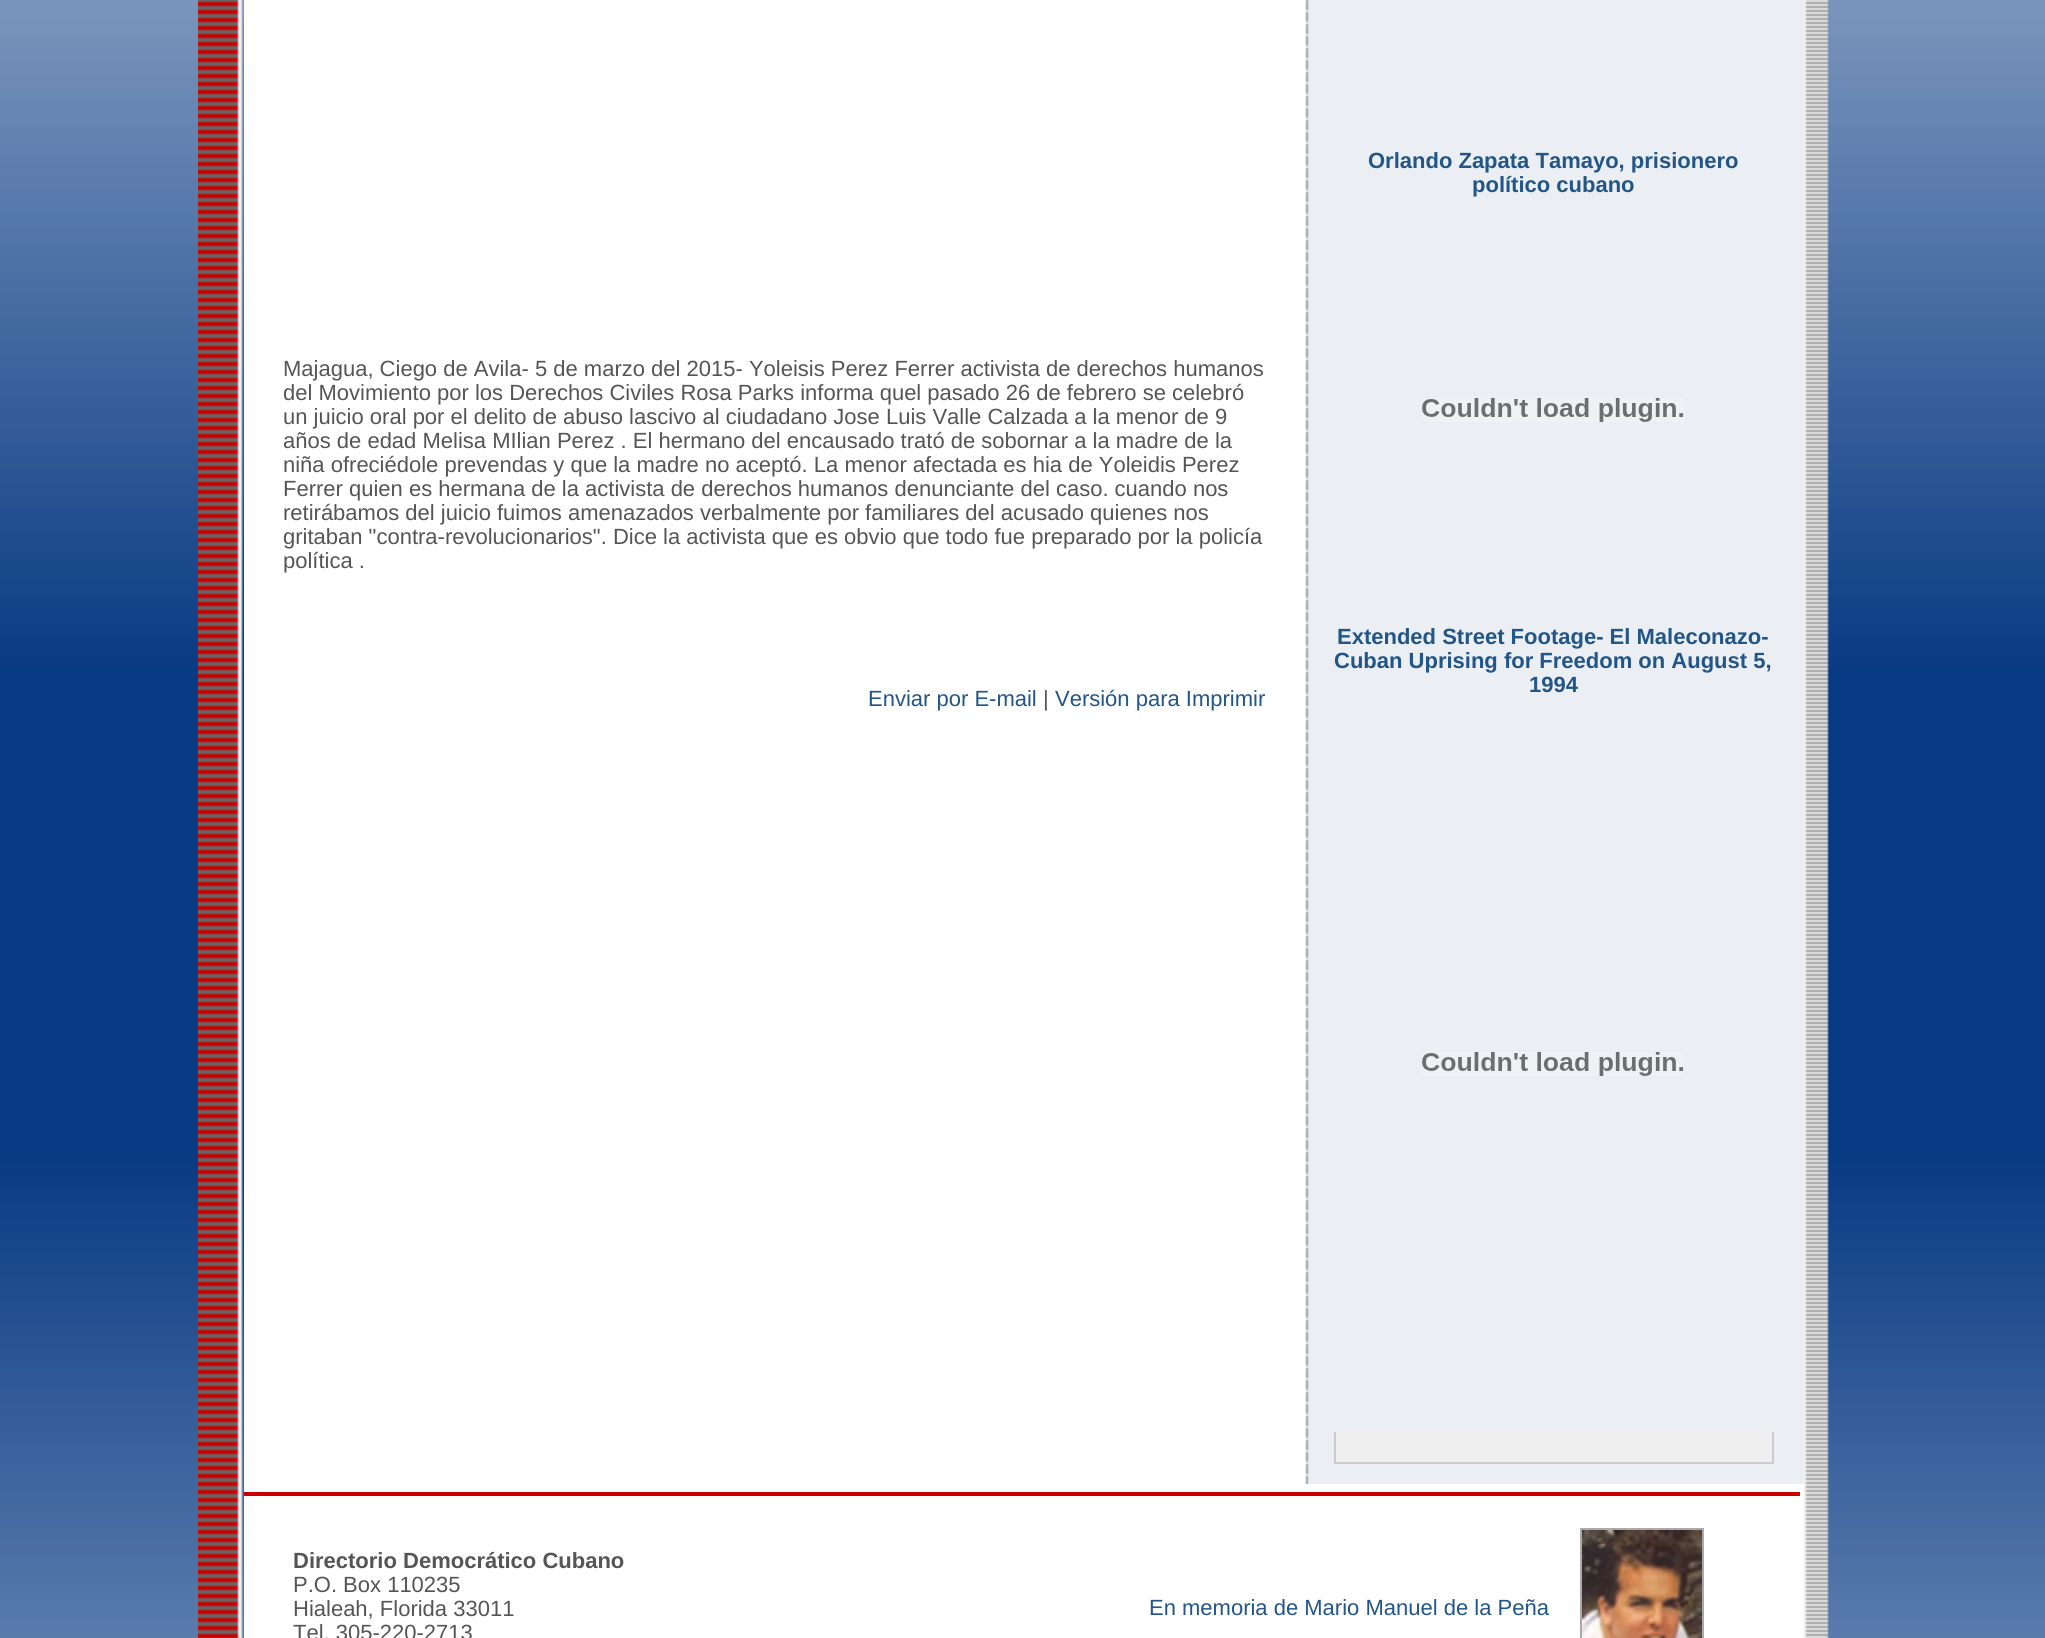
import math
import cairo


def use_color(cr, r, g, b):
  cr.set_source_rgb(r / 255, g / 255, b / 255)

def text(cr, x, y, s, family, size, color, bold=False, italic=False):
  cr.select_font_face(family, cairo.FONT_SLANT_ITALIC if italic else cairo.FONT_SLANT_NORMAL, cairo.FONT_WEIGHT_BOLD if bold else cairo.FONT_WEIGHT_NORMAL)
  cr.set_font_size(size)
  use_color(cr, *color)
  cr.move_to(x, y)
  cr.show_text(s)

def box(cr, x, y, w, h, *color):
  use_color(cr, *color)
  cr.rectangle(x, y, w, h)
  cr.fill()

def picture(cr, path, x, y, w, h):
  cr.save()
  cr.set_source_surface(cairo.ImageSurface.create_from_png(path), x, y)
  cr.rectangle(x, y, w, h)
  cr.fill()
  cr.restore()

def draw(cr):
  use_color(cr, 255, 255, 255)
  cr.paint()
  picture(cr, "img_01.png", 0, 0, 2045, 1638)
  picture(cr, "img_02.png", 198, 0, 1631, 1638)
  box(cr, 244, 0, 1560, 1638, 255, 255, 255)
  picture(cr, "img_03.png", 1305, 0, 499, 1484)
  picture(cr, "img_04.png", 1422, 398, 262, 24)
  picture(cr, "img_04.png", 1422, 1052, 262, 24)
  box(cr, 1336, 1432, 436, 30, 239, 239, 239)
  box(cr, 1772, 1432, 2, 32, 204, 204, 204)
  box(cr, 1334, 1462, 440, 2, 204, 204, 204)
  box(cr, 1334, 1432, 2, 32, 204, 204, 204)
  box(cr, 244, 1492, 1556, 4, 204, 0, 0)
  cr.rectangle(1581, 1529, 122, 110)
  use_color(cr, 170, 170, 170)
  cr.stroke()
  picture(cr, "img_05.png", 1582, 1530, 120, 108)
  text(cr, 283, 376, "Majagua, Ciego de Avila- 5 de marzo del 2015- Yoleisis Perez Ferrer activista de derechos humanos", "Liberation Sans", 22, (85, 85, 85))
  text(cr, 283, 400, "del Movimiento por los Derechos Civiles Rosa Parks informa quel pasado 26 de febrero se celebró", "Liberation Sans", 22, (85, 85, 85))
  text(cr, 283, 424, "un juicio oral por el delito de abuso lascivo al ciudadano Jose Luis Valle Calzada a la menor de 9", "Liberation Sans", 22, (85, 85, 85))
  text(cr, 283, 448, "años de edad Melisa MIlian Perez . El hermano del encausado trató de sobornar a la madre de la", "Liberation Sans", 22, (85, 85, 85))
  text(cr, 283, 472, "niña ofreciédole prevendas y que la madre no aceptó. La menor afectada es hia de Yoleidis Perez", "Liberation Sans", 22, (85, 85, 85))
  text(cr, 283, 496, "Ferrer quien es hermana de la activista de derechos humanos denunciante del caso. cuando nos", "Liberation Sans", 22, (85, 85, 85))
  text(cr, 283, 520, "retirábamos del juicio fuimos amenazados verbalmente por familiares del acusado quienes nos", "Liberation Sans", 22, (85, 85, 85))
  text(cr, 283, 544, "gritaban \"contra-revolucionarios\". Dice la activista que es obvio que todo fue preparado por la policía", "Liberation Sans", 22, (85, 85, 85))
  text(cr, 283, 568, "política .", "Liberation Sans", 22, (85, 85, 85))
  text(cr, 868, 706, "Enviar por E-mail", "Liberation Sans", 22, (34, 85, 136))
  text(cr, 1043, 706, "|", "Liberation Sans", 22, (85, 85, 85))
  text(cr, 1055, 706, "Versión para Imprimir", "Liberation Sans", 22, (34, 85, 136))
  text(cr, 1368, 168, "Orlando Zapata Tamayo, prisionero", "Liberation Sans", 22, (34, 85, 136), bold=True)
  text(cr, 1472, 192, "político cubano", "Liberation Sans", 22, (34, 85, 136), bold=True)
  text(cr, 1337, 644, "Extended Street Footage- El Maleconazo-", "Liberation Sans", 22, (34, 85, 136), bold=True)
  text(cr, 1334, 668, "Cuban Uprising for Freedom on August 5,", "Liberation Sans", 22, (34, 85, 136), bold=True)
  text(cr, 1529, 692, "1994", "Liberation Sans", 22, (34, 85, 136), bold=True)
  text(cr, 293, 1568, "Directorio Democrático Cubano", "Liberation Sans", 22, (85, 85, 85), bold=True)
  text(cr, 293, 1592, "P.O. Box 110235", "Liberation Sans", 22, (85, 85, 85))
  text(cr, 293, 1616, "Hialeah, Florida 33011", "Liberation Sans", 22, (85, 85, 85))
  text(cr, 293, 1640, "Tel. 305-220-2713", "Liberation Sans", 22, (85, 85, 85))
  text(cr, 1149, 1615, "En memoria de Mario Manuel de la Peña", "Liberation Sans", 22, (34, 85, 136))


surface = cairo.ImageSurface(cairo.FORMAT_RGB24, 2045, 1638)
cr = cairo.Context(surface)
options = cairo.FontOptions()
options.set_hint_metrics(cairo.HINT_METRICS_OFF)
options.set_hint_style(cairo.HINT_STYLE_NONE)
cr.set_font_options(options)
cr.set_miter_limit(4)
draw(cr)
surface.write_to_png("out.png")
